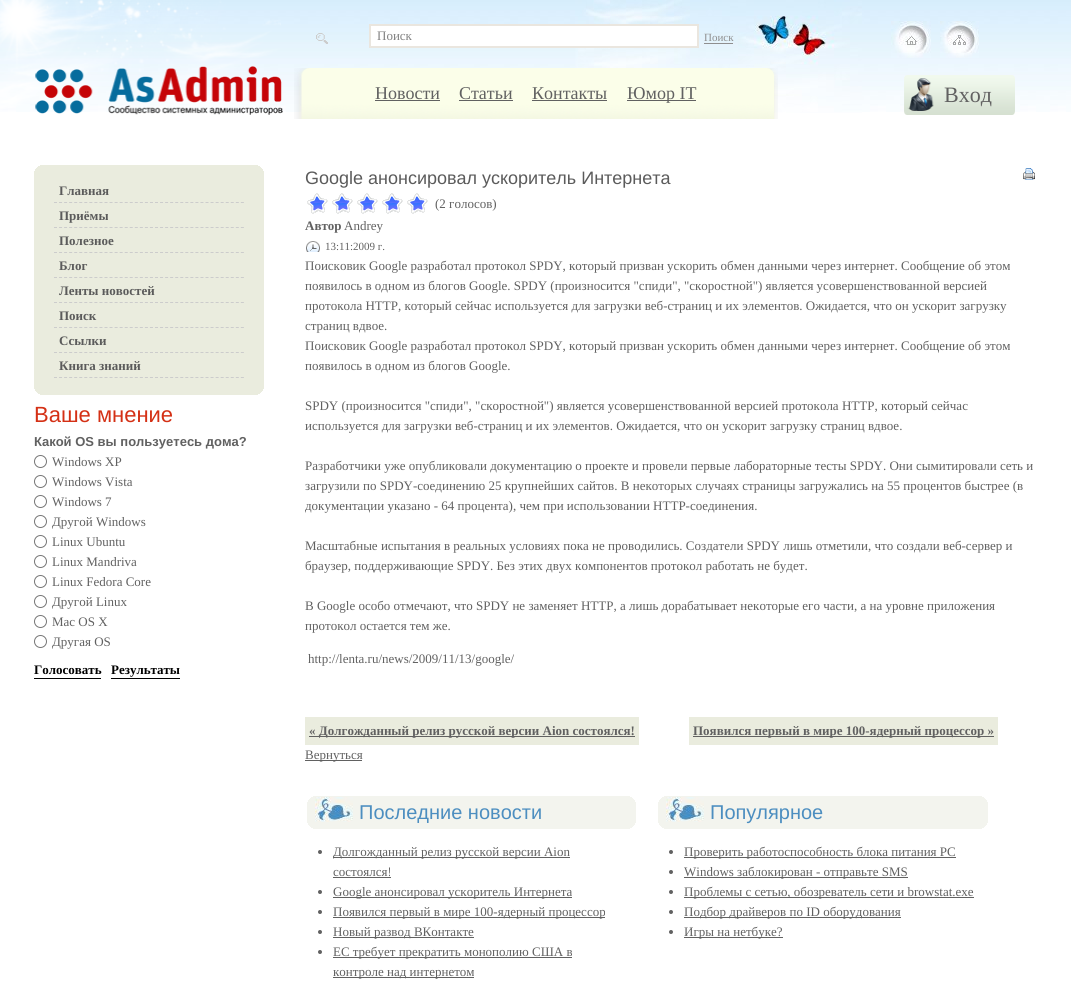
import math
import cairo


def use_color(cr, r, g, b):
  cr.set_source_rgb(r / 255, g / 255, b / 255)

def text(cr, x, y, s, family, size, color, bold=False, italic=False):
  cr.select_font_face(family, cairo.FONT_SLANT_ITALIC if italic else cairo.FONT_SLANT_NORMAL, cairo.FONT_WEIGHT_BOLD if bold else cairo.FONT_WEIGHT_NORMAL)
  cr.set_font_size(size)
  use_color(cr, *color)
  cr.move_to(x, y)
  cr.show_text(s)

def box(cr, x, y, w, h, *color):
  use_color(cr, *color)
  cr.rectangle(x, y, w, h)
  cr.fill()

def picture(cr, path, x, y, w, h):
  cr.save()
  cr.set_source_surface(cairo.ImageSurface.create_from_png(path), x, y)
  cr.rectangle(x, y, w, h)
  cr.fill()
  cr.restore()

def draw(cr):
  use_color(cr, 255, 255, 255)
  cr.paint()
  picture(cr, "img_01.png", 0, 0, 1071, 112)
  picture(cr, "img_02.png", 0, 0, 281, 112)
  picture(cr, "img_03.png", 575, 0, 287, 113)
  picture(cr, "img_04.png", 35, 66, 248, 49)
  picture(cr, "img_05.png", 316, 33, 12, 11)
  use_color(cr, 255, 255, 255)
  cr.rectangle(370, 25, 328, 22)
  cr.fill_preserve()
  use_color(cr, 234, 230, 223)
  cr.stroke()
  box(cr, 704, 43, 29, 1, 143, 143, 143)
  picture(cr, "img_06.png", 294, 68, 28, 51)
  picture(cr, "img_07.png", 763, 68, 15, 51)
  picture(cr, "img_08.png", 322, 68, 441, 51)
  box(cr, 375, 100, 65, 1, 97, 97, 97)
  box(cr, 459, 100, 54, 1, 97, 97, 97)
  box(cr, 532, 100, 75, 1, 97, 97, 97)
  box(cr, 627, 100, 69, 1, 97, 97, 97)
  picture(cr, "img_09.png", 891, 21, 40, 37)
  picture(cr, "img_10.png", 940, 21, 39, 37)
  picture(cr, "img_11.png", 904, 75, 111, 40)
  box(cr, 34, 165, 230, 230, 234, 236, 222)
  box(cr, 258, 165, 6, 1, 255, 255, 255)
  box(cr, 34, 165, 6, 1, 255, 255, 255)
  box(cr, 260, 166, 4, 1, 255, 255, 255)
  box(cr, 34, 166, 4, 1, 255, 255, 255)
  box(cr, 261, 167, 3, 1, 255, 255, 255)
  box(cr, 34, 167, 3, 1, 255, 255, 255)
  box(cr, 262, 168, 2, 1, 255, 255, 255)
  box(cr, 34, 168, 2, 1, 255, 255, 255)
  box(cr, 263, 169, 1, 2, 255, 255, 255)
  box(cr, 34, 169, 1, 2, 255, 255, 255)
  cr.new_path()
  cr.move_to(54, 202.5)
  cr.line_to(244, 202.5)
  use_color(cr, 204, 204, 204)
  cr.set_line_width(1)
  cr.set_dash([3, 2.05])
  cr.stroke()
  cr.new_path()
  cr.move_to(54, 227.5)
  cr.line_to(244, 227.5)
  cr.stroke()
  cr.new_path()
  cr.move_to(54, 252.5)
  cr.line_to(244, 252.5)
  cr.stroke()
  cr.new_path()
  cr.move_to(54, 277.5)
  cr.line_to(244, 277.5)
  cr.stroke()
  cr.new_path()
  cr.move_to(54, 302.5)
  cr.line_to(244, 302.5)
  cr.stroke()
  cr.new_path()
  cr.move_to(54, 327.5)
  cr.line_to(244, 327.5)
  cr.stroke()
  cr.new_path()
  cr.move_to(54, 352.5)
  cr.line_to(244, 352.5)
  cr.stroke()
  cr.new_path()
  cr.move_to(54, 377.5)
  cr.line_to(244, 377.5)
  cr.stroke()
  box(cr, 263, 389, 1, 2, 255, 255, 255)
  box(cr, 34, 389, 1, 2, 255, 255, 255)
  box(cr, 262, 391, 2, 1, 255, 255, 255)
  box(cr, 34, 391, 2, 1, 255, 255, 255)
  box(cr, 261, 392, 3, 1, 255, 255, 255)
  box(cr, 34, 392, 3, 1, 255, 255, 255)
  box(cr, 260, 393, 4, 1, 255, 255, 255)
  box(cr, 34, 393, 4, 1, 255, 255, 255)
  box(cr, 258, 394, 6, 1, 255, 255, 255)
  box(cr, 34, 394, 6, 1, 255, 255, 255)
  cr.arc(40.5, 461.5, 6, 0, 2 * math.pi)
  use_color(cr, 118, 118, 118)
  cr.set_dash([])
  cr.stroke()
  cr.arc(40.5, 481.5, 6, 0, 2 * math.pi)
  cr.stroke()
  cr.arc(40.5, 501.5, 6, 0, 2 * math.pi)
  cr.stroke()
  cr.arc(40.5, 521.5, 6, 0, 2 * math.pi)
  cr.stroke()
  cr.arc(40.5, 541.5, 6, 0, 2 * math.pi)
  cr.stroke()
  cr.arc(40.5, 561.5, 6, 0, 2 * math.pi)
  cr.stroke()
  cr.arc(40.5, 581.5, 6, 0, 2 * math.pi)
  cr.stroke()
  cr.arc(40.5, 601.5, 6, 0, 2 * math.pi)
  cr.stroke()
  cr.arc(40.5, 621.5, 6, 0, 2 * math.pi)
  cr.stroke()
  cr.arc(40.5, 641.5, 6, 0, 2 * math.pi)
  cr.stroke()
  box(cr, 34, 678, 67, 1, 0, 0, 0)
  box(cr, 111, 678, 69, 1, 0, 0, 0)
  picture(cr, "img_12.png", 1023, 168, 12, 12)
  picture(cr, "img_13.png", 307, 200, 121, 14)
  picture(cr, "img_14.png", 307, 193, 120, 20)
  picture(cr, "img_15.png", 306, 241, 14, 11)
  box(cr, 305, 717, 334, 28, 234, 236, 222)
  box(cr, 309, 736, 326, 1, 97, 97, 97)
  box(cr, 689, 717, 309, 28, 234, 236, 222)
  box(cr, 693, 736, 301, 1, 97, 97, 97)
  box(cr, 305, 760, 57, 1, 97, 97, 97)
  box(cr, 307, 796, 329, 33, 243, 244, 238)
  picture(cr, "img_16.png", 315, 797, 38, 25)
  box(cr, 630, 796, 6, 1, 255, 255, 255)
  box(cr, 307, 796, 6, 1, 255, 255, 255)
  box(cr, 632, 797, 4, 1, 255, 255, 255)
  box(cr, 307, 797, 4, 1, 255, 255, 255)
  box(cr, 633, 798, 3, 1, 255, 255, 255)
  box(cr, 307, 798, 3, 1, 255, 255, 255)
  box(cr, 634, 799, 2, 1, 255, 255, 255)
  box(cr, 307, 799, 2, 1, 255, 255, 255)
  box(cr, 635, 800, 1, 2, 255, 255, 255)
  box(cr, 307, 800, 1, 2, 255, 255, 255)
  box(cr, 635, 823, 1, 2, 255, 255, 255)
  box(cr, 307, 823, 1, 2, 255, 255, 255)
  box(cr, 634, 825, 2, 1, 255, 255, 255)
  box(cr, 307, 825, 2, 1, 255, 255, 255)
  box(cr, 633, 826, 3, 1, 255, 255, 255)
  box(cr, 307, 826, 3, 1, 255, 255, 255)
  box(cr, 632, 827, 4, 1, 255, 255, 255)
  box(cr, 307, 827, 4, 1, 255, 255, 255)
  box(cr, 630, 828, 6, 1, 255, 255, 255)
  box(cr, 307, 828, 6, 1, 255, 255, 255)
  use_color(cr, 97, 97, 97)
  cr.arc(320, 852, 2, 0, 2 * math.pi)
  cr.fill()
  box(cr, 333, 857, 237, 1, 97, 97, 97)
  box(cr, 333, 877, 58, 1, 97, 97, 97)
  cr.arc(320, 892, 2, 0, 2 * math.pi)
  cr.fill()
  box(cr, 333, 897, 239, 1, 97, 97, 97)
  cr.arc(320, 912, 2, 0, 2 * math.pi)
  cr.fill()
  box(cr, 333, 917, 272, 1, 97, 97, 97)
  cr.arc(320, 932, 2, 0, 2 * math.pi)
  cr.fill()
  box(cr, 333, 937, 141, 1, 97, 97, 97)
  cr.arc(320, 952, 2, 0, 2 * math.pi)
  cr.fill()
  box(cr, 333, 957, 239, 1, 97, 97, 97)
  box(cr, 333, 977, 141, 1, 97, 97, 97)
  box(cr, 658, 796, 330, 33, 243, 244, 238)
  picture(cr, "img_16.png", 666, 797, 38, 25)
  box(cr, 982, 796, 6, 1, 255, 255, 255)
  box(cr, 658, 796, 6, 1, 255, 255, 255)
  box(cr, 984, 797, 4, 1, 255, 255, 255)
  box(cr, 658, 797, 4, 1, 255, 255, 255)
  box(cr, 985, 798, 3, 1, 255, 255, 255)
  box(cr, 658, 798, 3, 1, 255, 255, 255)
  box(cr, 986, 799, 2, 1, 255, 255, 255)
  box(cr, 658, 799, 2, 1, 255, 255, 255)
  box(cr, 987, 800, 1, 2, 255, 255, 255)
  box(cr, 658, 800, 1, 2, 255, 255, 255)
  box(cr, 987, 823, 1, 2, 255, 255, 255)
  box(cr, 658, 823, 1, 2, 255, 255, 255)
  box(cr, 986, 825, 2, 1, 255, 255, 255)
  box(cr, 658, 825, 2, 1, 255, 255, 255)
  box(cr, 985, 826, 3, 1, 255, 255, 255)
  box(cr, 658, 826, 3, 1, 255, 255, 255)
  box(cr, 984, 827, 4, 1, 255, 255, 255)
  box(cr, 658, 827, 4, 1, 255, 255, 255)
  box(cr, 982, 828, 6, 1, 255, 255, 255)
  box(cr, 658, 828, 6, 1, 255, 255, 255)
  use_color(cr, 97, 97, 97)
  cr.arc(671, 852, 2, 0, 2 * math.pi)
  cr.fill()
  box(cr, 684, 857, 272, 1, 97, 97, 97)
  cr.arc(671, 872, 2, 0, 2 * math.pi)
  cr.fill()
  box(cr, 684, 877, 224, 1, 97, 97, 97)
  cr.arc(671, 892, 2, 0, 2 * math.pi)
  cr.fill()
  box(cr, 684, 897, 290, 1, 97, 97, 97)
  cr.arc(671, 912, 2, 0, 2 * math.pi)
  cr.fill()
  box(cr, 684, 917, 217, 1, 97, 97, 97)
  cr.arc(671, 932, 2, 0, 2 * math.pi)
  cr.fill()
  box(cr, 684, 937, 99, 1, 97, 97, 97)
  text(cr, 377, 40, "Поиск", "Liberation Serif", 13, (130, 130, 130))
  text(cr, 704, 41, "Поиск", "Liberation Serif", 11, (143, 143, 143))
  text(cr, 375, 99, "Новости", "Liberation Serif", 18, (97, 97, 97))
  text(cr, 459, 99, "Статьи", "Liberation Serif", 18, (97, 97, 97))
  text(cr, 532, 99, "Контакты", "Liberation Serif", 18, (97, 97, 97))
  text(cr, 627, 99, "Юмор IT", "Liberation Serif", 18, (97, 97, 97))
  text(cr, 944, 102, "Вход", "Liberation Serif", 22, (97, 97, 97))
  text(cr, 59, 195, "Главная", "Liberation Serif", 13, (91, 91, 91), bold=True)
  text(cr, 59, 220, "Приёмы", "Liberation Serif", 13, (91, 91, 91), bold=True)
  text(cr, 59, 245, "Полезное", "Liberation Serif", 13, (91, 91, 91), bold=True)
  text(cr, 59, 270, "Блог", "Liberation Serif", 13, (91, 91, 91), bold=True)
  text(cr, 59, 295, "Ленты новостей", "Liberation Serif", 13, (91, 91, 91), bold=True)
  text(cr, 59, 320, "Поиск", "Liberation Serif", 13, (91, 91, 91), bold=True)
  text(cr, 59, 345, "Ссылки", "Liberation Serif", 13, (91, 91, 91), bold=True)
  text(cr, 59, 370, "Книга знаний", "Liberation Serif", 13, (91, 91, 91), bold=True)
  text(cr, 34, 422, "Ваше мнение", "Liberation Sans", 22, (212, 48, 21))
  text(cr, 34, 446, "Какой OS вы пользуетесь дома?", "Liberation Sans", 13, (97, 97, 97), bold=True)
  text(cr, 52, 466, "Windows XP", "Liberation Serif", 13, (97, 97, 97))
  text(cr, 52, 486, "Windows Vista", "Liberation Serif", 13, (97, 97, 97))
  text(cr, 52, 506, "Windows 7", "Liberation Serif", 13, (97, 97, 97))
  text(cr, 52, 526, "Другой Windows", "Liberation Serif", 13, (97, 97, 97))
  text(cr, 52, 546, "Linux Ubuntu", "Liberation Serif", 13, (97, 97, 97))
  text(cr, 52, 566, "Linux Mandriva", "Liberation Serif", 13, (97, 97, 97))
  text(cr, 52, 586, "Linux Fedora Core", "Liberation Serif", 13, (97, 97, 97))
  text(cr, 52, 606, "Другой Linux", "Liberation Serif", 13, (97, 97, 97))
  text(cr, 52, 626, "Mac OS X", "Liberation Serif", 13, (97, 97, 97))
  text(cr, 52, 646, "Другая OS", "Liberation Serif", 13, (97, 97, 97))
  text(cr, 34, 674, "Голосовать", "Liberation Serif", 13, (0, 0, 0), bold=True)
  text(cr, 111, 674, "Результаты", "Liberation Serif", 13, (0, 0, 0), bold=True)
  text(cr, 305, 184, "Google анонсировал ускоритель Интернета", "Liberation Sans", 18, (91, 91, 91))
  text(cr, 435, 208, "(2 голосов)", "Liberation Serif", 13, (97, 97, 97))
  text(cr, 305, 230, "Автор", "Liberation Serif", 13, (97, 97, 97), bold=True)
  text(cr, 344, 230, "Andrey", "Liberation Serif", 13, (97, 97, 97))
  text(cr, 325, 250, "13:11:2009 г.", "Liberation Serif", 11, (97, 97, 97))
  text(cr, 305, 270, "Поисковик Google разработал протокол SPDY, который призван ускорить обмен данными через интернет. Сообщение об этом", "Liberation Serif", 13, (97, 97, 97))
  text(cr, 305, 290, "появилось в одном из блогов Google. SPDY (произносится \"спиди\", \"скоростной\") является усовершенствованной версией", "Liberation Serif", 13, (97, 97, 97))
  text(cr, 305, 310, "протокола HTTP, который сейчас используется для загрузки веб-страниц и их элементов. Ожидается, что он ускорит загрузку", "Liberation Serif", 13, (97, 97, 97))
  text(cr, 305, 330, "страниц вдвое.", "Liberation Serif", 13, (97, 97, 97))
  text(cr, 305, 350, "Поисковик Google разработал протокол SPDY, который призван ускорить обмен данными через интернет. Сообщение об этом", "Liberation Serif", 13, (97, 97, 97))
  text(cr, 305, 370, "появилось в одном из блогов Google.", "Liberation Serif", 13, (97, 97, 97))
  text(cr, 305, 410, "SPDY (произносится \"спиди\", \"скоростной\") является усовершенствованной версией протокола HTTP, который сейчас", "Liberation Serif", 13, (97, 97, 97))
  text(cr, 305, 430, "используется для загрузки веб-страниц и их элементов. Ожидается, что он ускорит загрузку страниц вдвое.", "Liberation Serif", 13, (97, 97, 97))
  text(cr, 305, 470, "Разработчики уже опубликовали документацию о проекте и провели первые лабораторные тесты SPDY. Они сымитировали сеть и", "Liberation Serif", 13, (97, 97, 97))
  text(cr, 305, 490, "загрузили по SPDY-соединению 25 крупнейших сайтов. В некоторых случаях страницы загружались на 55 процентов быстрее (в", "Liberation Serif", 13, (97, 97, 97))
  text(cr, 305, 510, "документации указано - 64 процента), чем при использовании HTTP-соединения.", "Liberation Serif", 13, (97, 97, 97))
  text(cr, 305, 550, "Масштабные испытания в реальных условиях пока не проводились. Создатели SPDY лишь отметили, что создали веб-сервер и", "Liberation Serif", 13, (97, 97, 97))
  text(cr, 305, 570, "браузер, поддерживающие SPDY. Без этих двух компонентов протокол работать не будет.", "Liberation Serif", 13, (97, 97, 97))
  text(cr, 305, 610, "В Google особо отмечают, что SPDY не заменяет HTTP, а лишь дорабатывает некоторые его части, а на уровне приложения", "Liberation Serif", 13, (97, 97, 97))
  text(cr, 305, 630, "протокол остается тем же.", "Liberation Serif", 13, (97, 97, 97))
  text(cr, 308, 663, "http://lenta.ru/news/2009/11/13/google/", "Liberation Serif", 13, (97, 97, 97))
  text(cr, 309, 735, "« Долгожданный релиз русской версии Aion состоялся!", "Liberation Serif", 13, (97, 97, 97), bold=True)
  text(cr, 693, 735, "Появился первый в мире 100-ядерный процессор »", "Liberation Serif", 13, (97, 97, 97), bold=True)
  text(cr, 305, 759, "Вернуться", "Liberation Serif", 13, (97, 97, 97))
  text(cr, 359, 819, "Последние новости", "Liberation Sans", 20, (76, 142, 192))
  text(cr, 333, 856, "Долгожданный релиз русской версии Aion", "Liberation Serif", 13, (97, 97, 97))
  text(cr, 333, 876, "состоялся!", "Liberation Serif", 13, (97, 97, 97))
  text(cr, 333, 896, "Google анонсировал ускоритель Интернета", "Liberation Serif", 13, (97, 97, 97))
  text(cr, 333, 916, "Появился первый в мире 100-ядерный процессор", "Liberation Serif", 13, (97, 97, 97))
  text(cr, 333, 936, "Новый развод ВКонтакте", "Liberation Serif", 13, (97, 97, 97))
  text(cr, 333, 956, "ЕС требует прекратить монополию США в", "Liberation Serif", 13, (97, 97, 97))
  text(cr, 333, 976, "контроле над интернетом", "Liberation Serif", 13, (97, 97, 97))
  text(cr, 710, 819, "Популярное", "Liberation Sans", 20, (76, 142, 192))
  text(cr, 684, 856, "Проверить работоспособность блока питания PC", "Liberation Serif", 13, (97, 97, 97))
  text(cr, 684, 876, "Windows заблокирован - отправьте SMS", "Liberation Serif", 13, (97, 97, 97))
  text(cr, 684, 896, "Проблемы с сетью, обозреватель сети и browstat.exe", "Liberation Serif", 13, (97, 97, 97))
  text(cr, 684, 916, "Подбор драйверов по ID оборудования", "Liberation Serif", 13, (97, 97, 97))
  text(cr, 684, 936, "Игры на нетбуке?", "Liberation Serif", 13, (97, 97, 97))


surface = cairo.ImageSurface(cairo.FORMAT_RGB24, 1071, 987)
cr = cairo.Context(surface)
options = cairo.FontOptions()
options.set_hint_metrics(cairo.HINT_METRICS_OFF)
options.set_hint_style(cairo.HINT_STYLE_NONE)
cr.set_font_options(options)
cr.set_miter_limit(4)
draw(cr)
surface.write_to_png("out.png")
